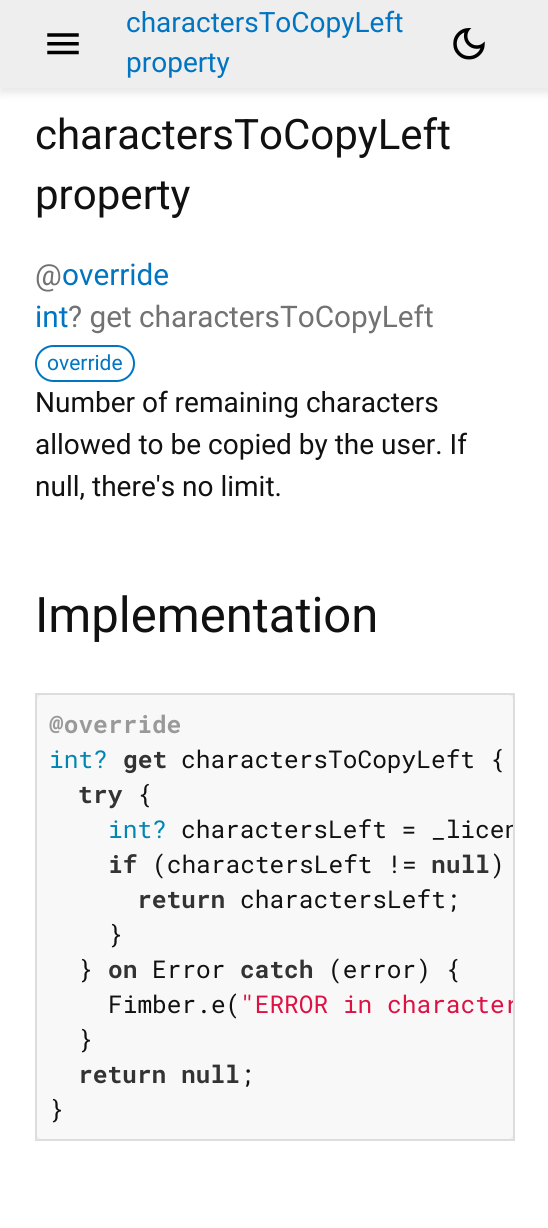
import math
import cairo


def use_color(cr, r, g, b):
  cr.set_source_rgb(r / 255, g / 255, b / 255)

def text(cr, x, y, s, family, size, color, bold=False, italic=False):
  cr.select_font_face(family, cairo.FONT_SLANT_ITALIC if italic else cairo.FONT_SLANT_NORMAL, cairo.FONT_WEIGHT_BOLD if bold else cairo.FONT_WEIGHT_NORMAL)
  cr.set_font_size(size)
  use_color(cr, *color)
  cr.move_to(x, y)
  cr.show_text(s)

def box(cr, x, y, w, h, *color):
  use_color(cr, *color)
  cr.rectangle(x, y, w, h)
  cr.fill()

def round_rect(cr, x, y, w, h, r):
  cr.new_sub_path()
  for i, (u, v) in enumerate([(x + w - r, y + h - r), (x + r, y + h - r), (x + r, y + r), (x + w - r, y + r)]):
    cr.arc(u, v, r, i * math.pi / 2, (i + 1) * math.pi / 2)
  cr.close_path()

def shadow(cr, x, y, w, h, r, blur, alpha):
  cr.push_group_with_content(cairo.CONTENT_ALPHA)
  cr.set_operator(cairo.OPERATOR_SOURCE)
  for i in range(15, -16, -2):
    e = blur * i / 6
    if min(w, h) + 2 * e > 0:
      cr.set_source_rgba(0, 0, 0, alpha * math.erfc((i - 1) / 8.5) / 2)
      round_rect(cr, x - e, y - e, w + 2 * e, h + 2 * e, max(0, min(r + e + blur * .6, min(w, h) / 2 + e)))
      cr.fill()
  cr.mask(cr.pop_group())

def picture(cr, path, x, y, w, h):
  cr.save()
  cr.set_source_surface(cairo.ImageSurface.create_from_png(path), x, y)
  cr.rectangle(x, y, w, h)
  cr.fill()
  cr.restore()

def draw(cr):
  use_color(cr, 255, 255, 255)
  cr.paint()
  use_color(cr, 0, 0, 0)
  shadow(cr, 0, 5, 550, 88, 0, 4.5, 0.1)
  box(cr, 0, 0, 548, 88, 238, 238, 238)
  picture(cr, "img_01.png", 47, 33, 32, 22)
  picture(cr, "img_02.png", 453, 28, 32, 32)
  round_rect(cr, 36, 346, 98, 35, 17.5)
  use_color(cr, 1, 117, 194)
  cr.stroke()
  use_color(cr, 238, 238, 238)
  cr.rectangle(36, 694, 478, 446)
  cr.fill_preserve()
  use_color(cr, 221, 221, 221)
  cr.stroke()
  use_color(cr, 248, 248, 248)
  round_rect(cr, 37, 695, 476, 444, 5)
  cr.fill()
  text(cr, 126, 32, "charactersToCopyLeft", "Roboto", 28, (1, 117, 194))
  text(cr, 126, 72, "property", "Roboto", 28, (1, 117, 194))
  text(cr, 35, 149, "charactersToCopyLeft", "Roboto", 42, (17, 17, 17))
  text(cr, 35, 209, "property", "Roboto", 42, (17, 17, 17))
  text(cr, 35, 285, "@", "Roboto", 29.75, (114, 114, 114))
  text(cr, 62, 285, "override", "Roboto", 29.75, (1, 117, 194))
  text(cr, 35, 327, "int", "Roboto", 29.75, (1, 117, 194))
  text(cr, 68, 327, "? get charactersToCopyLeft", "Roboto", 29.75, (114, 114, 114))
  text(cr, 47, 370, "override", "Roboto", 21, (1, 117, 194))
  text(cr, 35, 412, "Number of remaining characters", "Roboto", 28, (17, 17, 17))
  text(cr, 35, 454, "allowed to be copied by the user. If", "Roboto", 28, (17, 17, 17))
  text(cr, 35, 496, "null, there's no limit.", "Roboto", 28, (17, 17, 17))
  text(cr, 35, 632, "Implementation", "Roboto", 49, (17, 17, 17))
  text(cr, 49, 733, "@override", "Roboto Mono", 24.5, (153, 153, 153), bold=True)
  text(cr, 49, 768, "int?", "Roboto Mono", 24.5, (0, 134, 179))
  text(cr, 123, 768, "get", "Roboto Mono", 24.5, (51, 51, 51), bold=True)
  text(cr, 181, 768, "charactersToCopyLeft {", "Roboto Mono", 24.5, (17, 17, 17))
  text(cr, 78, 803, "try", "Roboto Mono", 24.5, (51, 51, 51), bold=True)
  text(cr, 137, 803, "{", "Roboto Mono", 24.5, (17, 17, 17))
  text(cr, 108, 838, "int?", "Roboto Mono", 24.5, (0, 134, 179))
  cr.save()
  round_rect(cr, 37, 695, 476, 444, 5)
  cr.clip()
  text(cr, 181, 838, "charactersLeft = _licen", "Roboto Mono", 24.5, (17, 17, 17))
  cr.restore()
  text(cr, 108, 873, "if", "Roboto Mono", 24.5, (51, 51, 51), bold=True)
  text(cr, 152, 873, "(charactersLeft !=", "Roboto Mono", 24.5, (17, 17, 17))
  text(cr, 431, 873, "null", "Roboto Mono", 24.5, (51, 51, 51), bold=True)
  text(cr, 490, 873, ")", "Roboto Mono", 24.5, (17, 17, 17))
  text(cr, 137, 908, "return", "Roboto Mono", 24.5, (51, 51, 51), bold=True)
  text(cr, 240, 908, "charactersLeft;", "Roboto Mono", 24.5, (17, 17, 17))
  text(cr, 108, 943, "}", "Roboto Mono", 24.5, (17, 17, 17))
  text(cr, 78, 978, "}", "Roboto Mono", 24.5, (17, 17, 17))
  text(cr, 108, 978, "on", "Roboto Mono", 24.5, (51, 51, 51), bold=True)
  text(cr, 152, 978, "Error", "Roboto Mono", 24.5, (17, 17, 17))
  text(cr, 240, 978, "catch", "Roboto Mono", 24.5, (51, 51, 51), bold=True)
  text(cr, 328, 978, "(error) {", "Roboto Mono", 24.5, (17, 17, 17))
  text(cr, 108, 1013, "Fimber.e(", "Roboto Mono", 24.5, (17, 17, 17))
  cr.save()
  round_rect(cr, 37, 695, 476, 444, 5)
  cr.clip()
  text(cr, 240, 1013, "\"ERROR in character", "Roboto Mono", 24.5, (221, 17, 68))
  cr.restore()
  text(cr, 78, 1048, "}", "Roboto Mono", 24.5, (17, 17, 17))
  text(cr, 78, 1083, "return null", "Roboto Mono", 24.5, (51, 51, 51), bold=True)
  text(cr, 240, 1083, ";", "Roboto Mono", 24.5, (17, 17, 17))
  text(cr, 49, 1118, "}", "Roboto Mono", 24.5, (17, 17, 17))


surface = cairo.ImageSurface(cairo.FORMAT_RGB24, 548, 1228)
cr = cairo.Context(surface)
options = cairo.FontOptions()
options.set_hint_metrics(cairo.HINT_METRICS_OFF)
options.set_hint_style(cairo.HINT_STYLE_NONE)
cr.set_font_options(options)
cr.set_miter_limit(4)
draw(cr)
surface.write_to_png("out.png")
